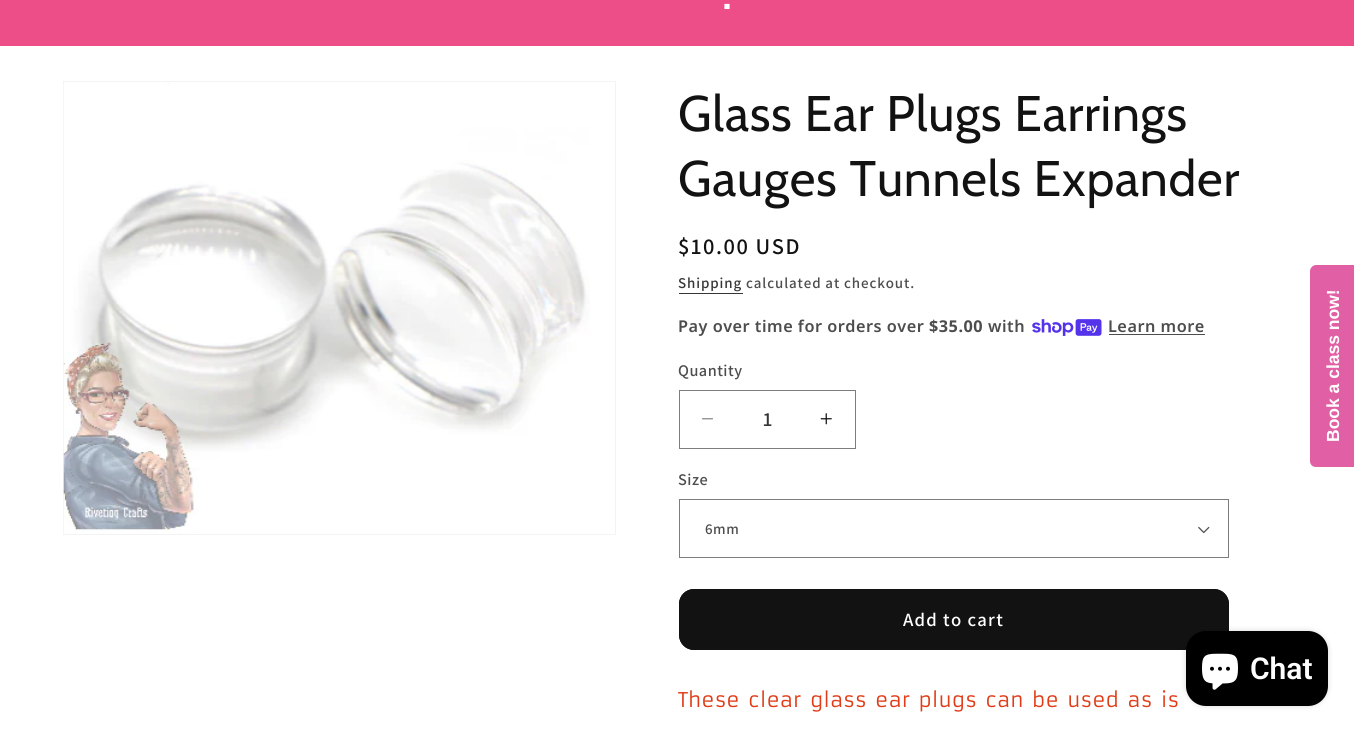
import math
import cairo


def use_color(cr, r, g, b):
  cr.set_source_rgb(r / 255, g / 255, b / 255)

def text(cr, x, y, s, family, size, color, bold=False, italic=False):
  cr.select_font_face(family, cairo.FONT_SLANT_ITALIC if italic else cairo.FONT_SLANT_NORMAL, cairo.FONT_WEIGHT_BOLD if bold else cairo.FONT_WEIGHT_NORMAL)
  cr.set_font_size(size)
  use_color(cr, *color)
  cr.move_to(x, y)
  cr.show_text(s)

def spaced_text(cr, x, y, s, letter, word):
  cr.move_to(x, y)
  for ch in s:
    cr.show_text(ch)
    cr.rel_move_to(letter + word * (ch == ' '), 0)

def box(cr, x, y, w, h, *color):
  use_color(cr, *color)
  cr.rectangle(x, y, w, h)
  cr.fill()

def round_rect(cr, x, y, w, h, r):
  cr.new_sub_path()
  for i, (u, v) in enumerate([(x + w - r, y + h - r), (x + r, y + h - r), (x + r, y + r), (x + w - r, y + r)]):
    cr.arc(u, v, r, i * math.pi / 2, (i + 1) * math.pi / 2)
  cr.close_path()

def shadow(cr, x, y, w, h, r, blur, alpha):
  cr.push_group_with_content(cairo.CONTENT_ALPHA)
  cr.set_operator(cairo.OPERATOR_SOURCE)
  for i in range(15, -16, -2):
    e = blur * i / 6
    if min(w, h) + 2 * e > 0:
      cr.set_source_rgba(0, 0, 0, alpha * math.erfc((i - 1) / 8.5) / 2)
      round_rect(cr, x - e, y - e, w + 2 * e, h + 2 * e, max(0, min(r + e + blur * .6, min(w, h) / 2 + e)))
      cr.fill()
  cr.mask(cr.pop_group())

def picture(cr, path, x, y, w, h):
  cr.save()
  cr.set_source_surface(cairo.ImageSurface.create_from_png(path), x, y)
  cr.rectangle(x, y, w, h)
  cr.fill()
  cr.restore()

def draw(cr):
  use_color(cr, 255, 255, 255)
  cr.paint()
  box(cr, 0, 0, 1354, 46, 237, 78, 135)
  cr.rectangle(63.5, 81.5, 552, 453)
  use_color(cr, 243, 243, 243)
  cr.set_line_width(1)
  cr.stroke()
  picture(cr, "img_01.png", 63, 83, 527, 451)
  box(cr, 679, 293, 64, 1, 54, 54, 54)
  picture(cr, "img_02.png", 1032, 319, 70, 17)
  box(cr, 1109, 334, 96, 1, 77, 77, 77)
  picture(cr, "img_03.png", 702, 418, 11, 2)
  picture(cr, "img_04.png", 820, 413, 12, 12)
  cr.rectangle(679.5, 390.5, 176, 58)
  use_color(cr, 125, 125, 125)
  cr.stroke()
  picture(cr, "img_05.png", 1198, 526, 12, 8)
  cr.rectangle(679.5, 499.5, 549, 58)
  cr.stroke()
  use_color(cr, 18, 18, 18)
  round_rect(cr, 679, 589, 550, 61, 15)
  cr.fill()
  round_rect(cr, 680.5, 590.5, 547, 58, 13.5)
  cr.set_line_width(3)
  cr.stroke()
  use_color(cr, 225, 96, 165)
  cr.new_path()
  cr.move_to(1310, 461)
  cr.line_to(1310, 271)
  cr.curve_to(1310, 268, 1313, 265, 1316, 265)
  cr.line_to(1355, 265)
  cr.line_to(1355, 467)
  cr.line_to(1316, 467)
  cr.curve_to(1313, 467, 1310, 465, 1310, 461)
  cr.close_path()
  cr.fill()
  use_color(cr, 0, 0, 0)
  shadow(cr, 1186, 631, 142, 75, 20, 3, 0.15)
  use_color(cr, 0, 0, 0)
  round_rect(cr, 1186, 631, 142, 75, 20)
  cr.fill()
  picture(cr, "img_06.png", 1202, 653, 36, 37)
  cr.select_font_face("Cabin")
  cr.set_font_size(48)
  use_color(cr, 255, 255, 255)
  spaced_text(cr, 722, 9, ".", 1.25, 0)
  cr.set_font_size(50)
  use_color(cr, 18, 18, 18)
  spaced_text(cr, 678, 131, "Glass Ear Plugs Earrings", 0.75, 0)
  spaced_text(cr, 678, 196, "Gauges Tunnels Expander", 0.75, 0)
  cr.select_font_face("Assistant SemiBold")
  cr.set_font_size(22.5)
  spaced_text(cr, 678, 254, "$10.00 USD", 1.6, 0)
  cr.set_font_size(15)
  use_color(cr, 54, 54, 54)
  spaced_text(cr, 678, 288, "Shipping", 0.9, 0)
  use_color(cr, 77, 77, 77)
  spaced_text(cr, 746, 288, "calculated at checkout.", 0.9, 0)
  cr.select_font_face("Noto Sans SemiBold")
  cr.set_font_size(16.25)
  spaced_text(cr, 678, 332, "Pay over time for orders over", 0.5, 0)
  cr.select_font_face("Noto Sans", cairo.FONT_SLANT_NORMAL, cairo.FONT_WEIGHT_BOLD)
  spaced_text(cr, 929, 332, "$35.00", 0.5, 0)
  cr.select_font_face("Noto Sans SemiBold")
  spaced_text(cr, 988, 332, "with", 0.5, 0)
  spaced_text(cr, 1108, 332, "Learn more", 0.5, 0)
  cr.select_font_face("Assistant SemiBold")
  spaced_text(cr, 678, 376, "Quantity", 0.5, 0)
  text(cr, 763, 426, "1", "Assistant SemiBold", 20, (54, 54, 54))
  cr.set_font_size(16.25)
  use_color(cr, 77, 77, 77)
  spaced_text(cr, 678, 485, "Size", 0.5, 0)
  cr.set_font_size(15)
  spaced_text(cr, 705, 534, "6mm", 0.5, 0)
  cr.set_font_size(18.75)
  use_color(cr, 255, 255, 255)
  spaced_text(cr, 903, 626, "Add to cart", 1.25, 0)
  cr.select_font_face("Armata")
  cr.set_font_size(20)
  use_color(cr, 224, 60, 23)
  spaced_text(cr, 678, 707, "These clear glass ear plugs can be used as is", 0, 3.5)
  cr.save()
  cr.translate(1339, 442)
  cr.rotate(-90 * math.pi / 180)
  text(cr, 0, 0, "Book a class now!", "Liberation Sans", 17.5, (255, 255, 255), bold=True)
  cr.restore()
  text(cr, 1250, 679, "Chat", "Roboto SemiBold", 30, (255, 255, 255))


surface = cairo.ImageSurface(cairo.FORMAT_RGB24, 1354, 732)
cr = cairo.Context(surface)
options = cairo.FontOptions()
options.set_hint_metrics(cairo.HINT_METRICS_OFF)
options.set_hint_style(cairo.HINT_STYLE_NONE)
cr.set_font_options(options)
cr.set_miter_limit(4)
draw(cr)
surface.write_to_png("out.png")
